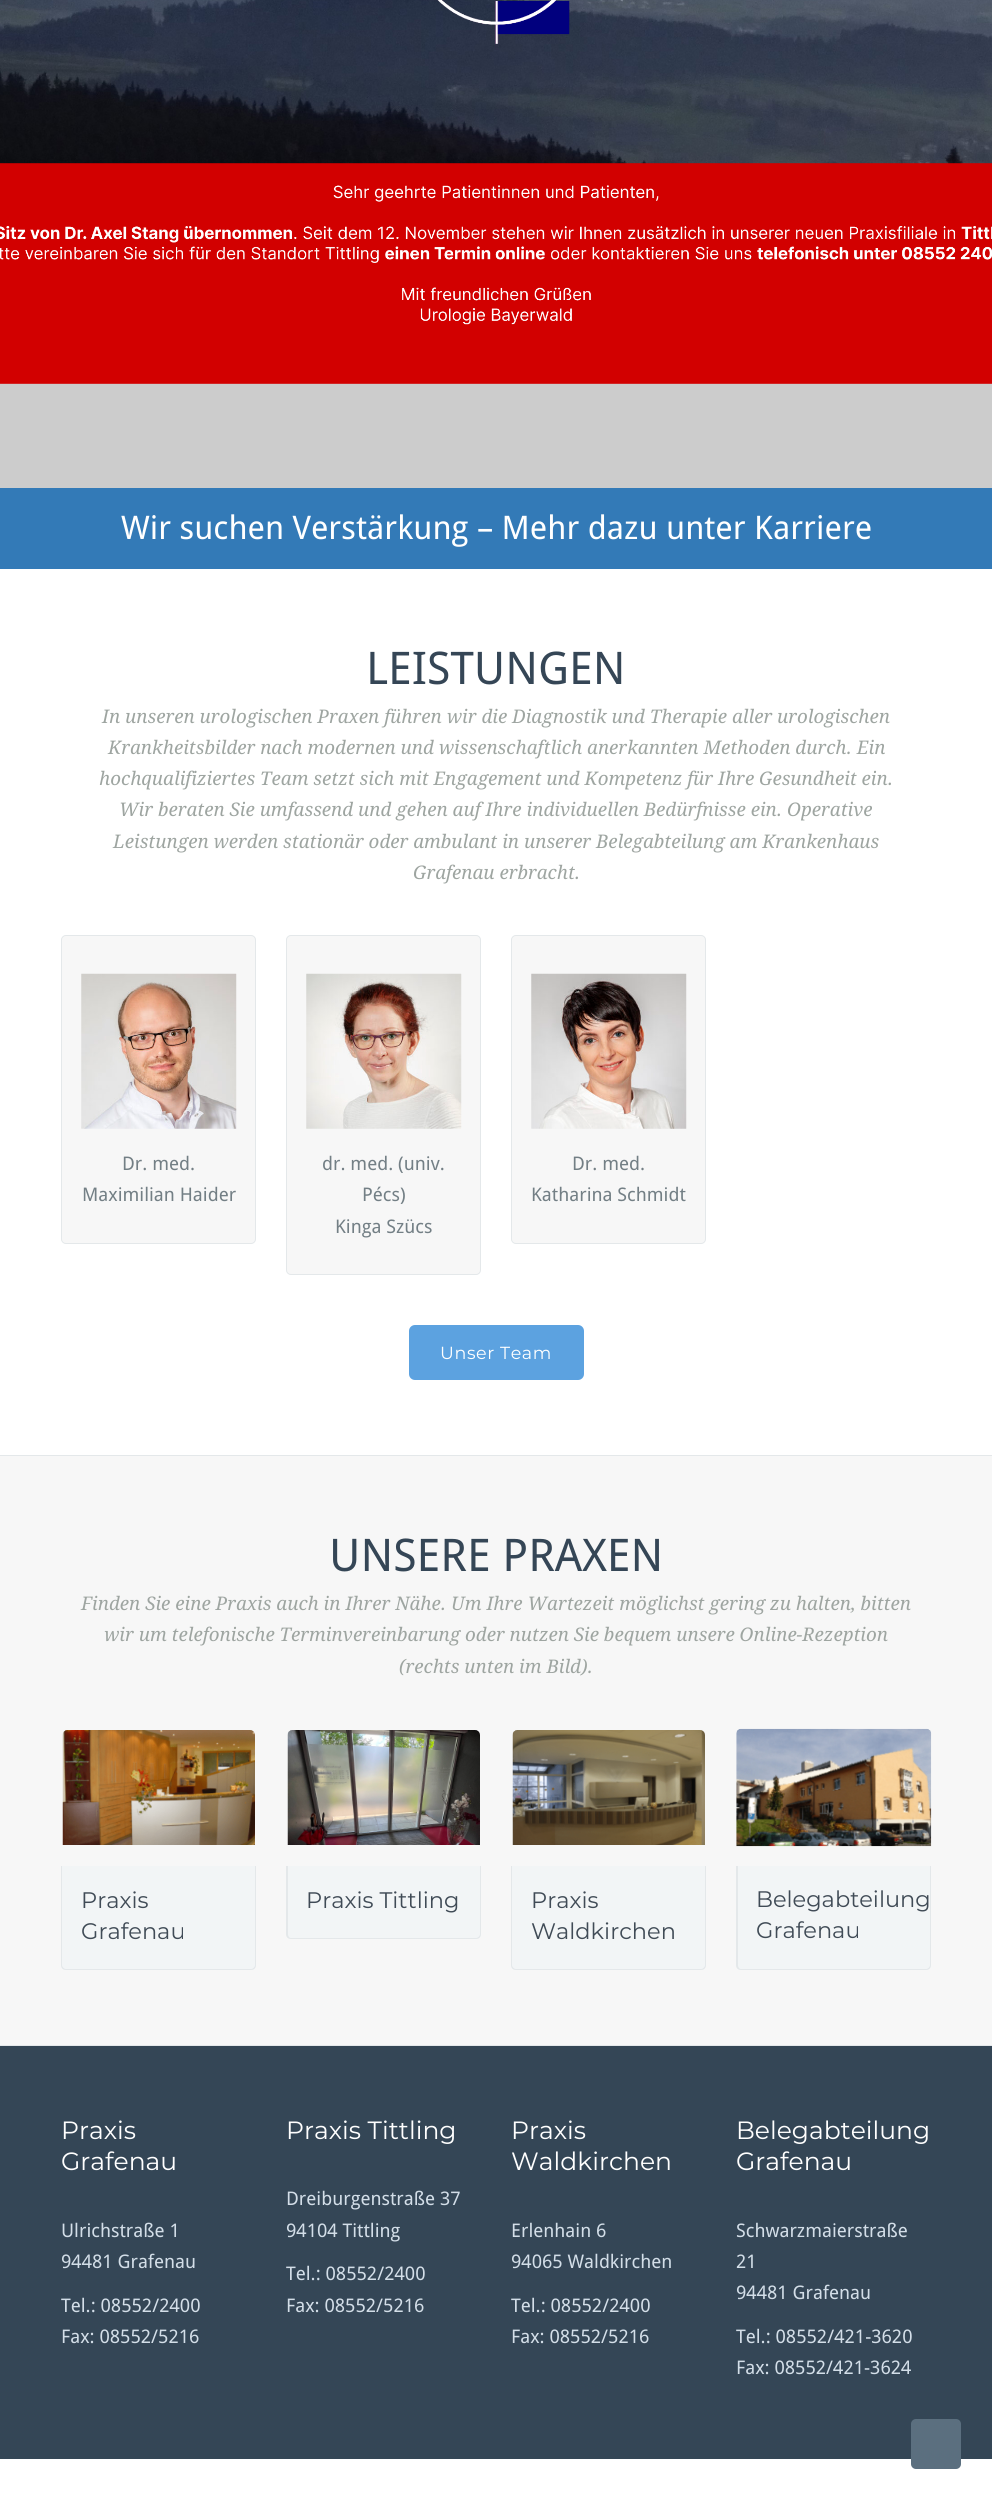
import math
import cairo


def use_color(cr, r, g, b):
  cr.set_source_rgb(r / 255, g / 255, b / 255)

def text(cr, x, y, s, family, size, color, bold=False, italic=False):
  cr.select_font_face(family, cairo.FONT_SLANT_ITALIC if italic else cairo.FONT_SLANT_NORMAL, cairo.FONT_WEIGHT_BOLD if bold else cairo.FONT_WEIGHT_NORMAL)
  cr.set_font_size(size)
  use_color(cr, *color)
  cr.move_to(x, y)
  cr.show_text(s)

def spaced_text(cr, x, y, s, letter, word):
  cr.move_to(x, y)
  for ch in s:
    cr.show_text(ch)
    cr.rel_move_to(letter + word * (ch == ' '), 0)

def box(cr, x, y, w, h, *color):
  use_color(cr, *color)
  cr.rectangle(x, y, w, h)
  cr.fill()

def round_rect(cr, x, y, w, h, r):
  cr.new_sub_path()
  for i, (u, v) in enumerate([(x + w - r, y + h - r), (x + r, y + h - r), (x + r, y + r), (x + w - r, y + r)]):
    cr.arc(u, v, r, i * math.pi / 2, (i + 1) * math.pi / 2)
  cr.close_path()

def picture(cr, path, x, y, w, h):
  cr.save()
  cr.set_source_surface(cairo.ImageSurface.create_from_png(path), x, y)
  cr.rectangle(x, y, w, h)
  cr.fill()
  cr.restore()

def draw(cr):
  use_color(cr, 51, 122, 183)
  cr.paint()
  box(cr, 0, 383, 992, 105, 204, 204, 204)
  picture(cr, "img_01.png", 0, 0, 992, 384)
  box(cr, 0, 569, 992, 886, 255, 255, 255)
  use_color(cr, 247, 247, 247)
  round_rect(cr, 61.5, 935.5, 194, 308, 4.5)
  cr.fill_preserve()
  use_color(cr, 228, 232, 234)
  cr.set_line_width(1)
  cr.stroke()
  picture(cr, "img_02.png", 81, 973, 156, 156)
  use_color(cr, 247, 247, 247)
  round_rect(cr, 286.5, 935.5, 194, 339, 4.5)
  cr.fill_preserve()
  use_color(cr, 228, 232, 234)
  cr.stroke()
  picture(cr, "img_03.png", 306, 973, 156, 156)
  use_color(cr, 247, 247, 247)
  round_rect(cr, 511.5, 935.5, 194, 308, 4.5)
  cr.fill_preserve()
  use_color(cr, 228, 232, 234)
  cr.stroke()
  picture(cr, "img_04.png", 531, 973, 156, 156)
  use_color(cr, 92, 162, 224)
  round_rect(cr, 409, 1325, 175, 55, 6)
  cr.fill()
  box(cr, 0, 1456, 992, 589, 247, 247, 247)
  box(cr, 0, 1455, 992, 1, 228, 232, 234)
  box(cr, 0, 2045, 992, 1, 228, 232, 234)
  picture(cr, "img_05.png", 62, 1730, 193, 115)
  use_color(cr, 242, 245, 246)
  cr.new_path()
  cr.move_to(61, 1866)
  cr.line_to(256, 1866)
  cr.line_to(256, 1965)
  cr.curve_to(256, 1968, 254, 1970, 251, 1970)
  cr.line_to(66, 1970)
  cr.curve_to(63, 1970, 61, 1968, 61, 1965)
  cr.close_path()
  cr.fill()
  use_color(cr, 228, 232, 234)
  cr.set_fill_rule(cairo.FILL_RULE_EVEN_ODD)
  cr.new_path()
  cr.move_to(61, 1866)
  cr.line_to(256, 1866)
  cr.line_to(256, 1965)
  cr.curve_to(256, 1968, 254, 1970, 251, 1970)
  cr.line_to(66, 1970)
  cr.curve_to(63, 1970, 61, 1968, 61, 1965)
  cr.close_path()
  cr.move_to(62, 1866)
  cr.line_to(255, 1866)
  cr.line_to(255, 1965)
  cr.curve_to(255, 1967, 253, 1969, 251, 1969)
  cr.line_to(66, 1969)
  cr.curve_to(64, 1969, 62, 1967, 62, 1965)
  cr.close_path()
  cr.fill()
  picture(cr, "img_06.png", 287, 1730, 193, 115)
  use_color(cr, 242, 245, 246)
  cr.new_path()
  cr.move_to(286, 1866)
  cr.line_to(481, 1866)
  cr.line_to(481, 1934)
  cr.curve_to(481, 1937, 479, 1939, 476, 1939)
  cr.line_to(291, 1939)
  cr.curve_to(288, 1939, 286, 1937, 286, 1934)
  cr.close_path()
  cr.fill()
  use_color(cr, 228, 232, 234)
  cr.new_path()
  cr.move_to(286, 1866)
  cr.line_to(481, 1866)
  cr.line_to(481, 1934)
  cr.curve_to(481, 1937, 479, 1939, 476, 1939)
  cr.line_to(291, 1939)
  cr.curve_to(288, 1939, 286, 1937, 286, 1934)
  cr.close_path()
  cr.move_to(288, 1866)
  cr.line_to(480, 1866)
  cr.line_to(480, 1934)
  cr.curve_to(480, 1936, 478, 1938, 476, 1938)
  cr.line_to(291, 1938)
  cr.curve_to(289, 1938, 288, 1936, 288, 1934)
  cr.close_path()
  cr.fill()
  picture(cr, "img_07.png", 512, 1730, 193, 115)
  use_color(cr, 242, 245, 246)
  cr.new_path()
  cr.move_to(511, 1866)
  cr.line_to(706, 1866)
  cr.line_to(706, 1965)
  cr.curve_to(706, 1968, 704, 1970, 701, 1970)
  cr.line_to(516, 1970)
  cr.curve_to(513, 1970, 511, 1968, 511, 1965)
  cr.close_path()
  cr.fill()
  use_color(cr, 228, 232, 234)
  cr.new_path()
  cr.move_to(511, 1866)
  cr.line_to(706, 1866)
  cr.line_to(706, 1965)
  cr.curve_to(706, 1968, 704, 1970, 701, 1970)
  cr.line_to(516, 1970)
  cr.curve_to(513, 1970, 511, 1968, 511, 1965)
  cr.close_path()
  cr.move_to(512, 1866)
  cr.line_to(705, 1866)
  cr.line_to(705, 1965)
  cr.curve_to(705, 1967, 703, 1969, 701, 1969)
  cr.line_to(516, 1969)
  cr.curve_to(514, 1969, 512, 1967, 512, 1965)
  cr.close_path()
  cr.fill()
  picture(cr, "img_08.png", 736, 1728, 196, 119)
  use_color(cr, 242, 245, 246)
  cr.new_path()
  cr.move_to(736, 1866)
  cr.line_to(931, 1866)
  cr.line_to(931, 1965)
  cr.curve_to(931, 1968, 929, 1970, 926, 1970)
  cr.line_to(741, 1970)
  cr.curve_to(738, 1970, 736, 1968, 736, 1965)
  cr.close_path()
  cr.fill()
  use_color(cr, 228, 232, 234)
  cr.new_path()
  cr.move_to(736, 1866)
  cr.line_to(931, 1866)
  cr.line_to(931, 1965)
  cr.curve_to(931, 1968, 929, 1970, 926, 1970)
  cr.line_to(741, 1970)
  cr.curve_to(738, 1970, 736, 1968, 736, 1965)
  cr.close_path()
  cr.move_to(738, 1866)
  cr.line_to(930, 1866)
  cr.line_to(930, 1965)
  cr.curve_to(930, 1967, 928, 1969, 926, 1969)
  cr.line_to(741, 1969)
  cr.curve_to(739, 1969, 738, 1967, 738, 1965)
  cr.close_path()
  cr.fill()
  box(cr, 0, 2046, 992, 413, 52, 70, 86)
  box(cr, 0, 2459, 992, 41, 255, 255, 255)
  use_color(cr, 91, 111, 127)
  round_rect(cr, 911, 2419, 50, 50, 5)
  cr.fill()
  text(cr, 121, 539, "Wir suchen Verstärkung – Mehr dazu unter Karriere", "Droid Sans", 32.5, (255, 255, 255))
  text(cr, 366, 684, "LEISTUNGEN", "Droid Sans", 45, (53, 70, 86))
  text(cr, 102, 723, "In unseren urologischen Praxen führen wir die Diagnostik und Therapie aller urologischen", "Droid Serif", 18.75, (158, 165, 161), italic=True)
  text(cr, 108, 754, "Krankheitsbilder nach modernen und wissenschaftlich anerkannten Methoden durch. Ein", "Droid Serif", 18.75, (158, 165, 161), italic=True)
  text(cr, 99, 785, "hochqualifiziertes Team setzt sich mit Engagement und Kompetenz für Ihre Gesundheit ein.", "Droid Serif", 18.75, (158, 165, 161), italic=True)
  text(cr, 119, 816, "Wir beraten Sie umfassend und gehen auf Ihre individuellen Bedürfnisse ein. Operative", "Droid Serif", 18.75, (158, 165, 161), italic=True)
  text(cr, 113, 848, "Leistungen werden stationär oder ambulant in unserer Belegabteilung am Krankenhaus", "Droid Serif", 18.75, (158, 165, 161), italic=True)
  text(cr, 413, 879, "Grafenau erbracht.", "Droid Serif", 18.75, (158, 165, 161), italic=True)
  text(cr, 122, 1170, "Dr. med.", "Droid Sans", 18.75, (115, 127, 133))
  text(cr, 82, 1201, "Maximilian Haider", "Droid Sans", 18.75, (115, 127, 133))
  text(cr, 322, 1170, "dr. med. (univ.", "Droid Sans", 18.75, (115, 127, 133))
  text(cr, 362, 1201, "Pécs)", "Droid Sans", 18.75, (115, 127, 133))
  text(cr, 335, 1233, "Kinga Szücs", "Droid Sans", 18.75, (115, 127, 133))
  text(cr, 572, 1170, "Dr. med.", "Droid Sans", 18.75, (115, 127, 133))
  text(cr, 531, 1201, "Katharina Schmidt", "Droid Sans", 18.75, (115, 127, 133))
  cr.select_font_face("Montserrat")
  cr.set_font_size(17.5)
  use_color(cr, 255, 255, 255)
  spaced_text(cr, 440, 1359, "Unser Team", 0.6, 0)
  text(cr, 329, 1571, "UNSERE PRAXEN", "Droid Sans", 45, (53, 70, 86))
  text(cr, 81, 1610, "Finden Sie eine Praxis auch in Ihrer Nähe. Um Ihre Wartezeit möglichst gering zu halten, bitten", "Droid Serif", 18.75, (158, 165, 161), italic=True)
  text(cr, 104, 1641, "wir um telefonische Terminvereinbarung oder nutzen Sie bequem unsere Online-Rezeption", "Droid Serif", 18.75, (158, 165, 161), italic=True)
  text(cr, 399, 1673, "(rechts unten im Bild).", "Droid Serif", 18.75, (158, 165, 161), italic=True)
  text(cr, 81, 1908, "Praxis", "Montserrat", 22.5, (64, 75, 86))
  text(cr, 81, 1939, "Grafenau", "Montserrat", 22.5, (64, 75, 86))
  text(cr, 306, 1908, "Praxis Tittling", "Montserrat", 22.5, (64, 75, 86))
  text(cr, 531, 1908, "Praxis", "Montserrat", 22.5, (64, 75, 86))
  text(cr, 531, 1939, "Waldkirchen", "Montserrat", 22.5, (64, 75, 86))
  text(cr, 756, 1907, "Belegabteilung", "Montserrat", 22.5, (64, 75, 86))
  text(cr, 756, 1938, "Grafenau", "Montserrat", 22.5, (64, 75, 86))
  text(cr, 61, 2139, "Praxis", "Montserrat", 25, (255, 255, 255))
  text(cr, 61, 2170, "Grafenau", "Montserrat", 25, (255, 255, 255))
  text(cr, 61, 2237, "Ulrichstraße 1", "Droid Sans", 18.75, (211, 222, 232))
  text(cr, 61, 2268, "94481 Grafenau", "Droid Sans", 18.75, (211, 222, 232))
  text(cr, 61, 2312, "Tel.: 08552/2400", "Droid Sans", 18.75, (211, 222, 232))
  text(cr, 61, 2343, "Fax: 08552/5216", "Droid Sans", 18.75, (211, 222, 232))
  text(cr, 286, 2139, "Praxis Tittling", "Montserrat", 25, (255, 255, 255))
  text(cr, 286, 2205, "Dreiburgenstraße 37", "Droid Sans", 18.75, (211, 222, 232))
  text(cr, 286, 2237, "94104 Tittling", "Droid Sans", 18.75, (211, 222, 232))
  text(cr, 286, 2280, "Tel.: 08552/2400", "Droid Sans", 18.75, (211, 222, 232))
  text(cr, 286, 2312, "Fax: 08552/5216", "Droid Sans", 18.75, (211, 222, 232))
  text(cr, 511, 2139, "Praxis", "Montserrat", 25, (255, 255, 255))
  text(cr, 511, 2170, "Waldkirchen", "Montserrat", 25, (255, 255, 255))
  text(cr, 511, 2237, "Erlenhain 6", "Droid Sans", 18.75, (211, 222, 232))
  text(cr, 511, 2268, "94065 Waldkirchen", "Droid Sans", 18.75, (211, 222, 232))
  text(cr, 511, 2312, "Tel.: 08552/2400", "Droid Sans", 18.75, (211, 222, 232))
  text(cr, 511, 2343, "Fax: 08552/5216", "Droid Sans", 18.75, (211, 222, 232))
  text(cr, 736, 2139, "Belegabteilung", "Montserrat", 25, (255, 255, 255))
  text(cr, 736, 2170, "Grafenau", "Montserrat", 25, (255, 255, 255))
  text(cr, 736, 2237, "Schwarzmaierstraße", "Droid Sans", 18.75, (211, 222, 232))
  text(cr, 736, 2268, "21", "Droid Sans", 18.75, (211, 222, 232))
  text(cr, 736, 2299, "94481 Grafenau", "Droid Sans", 18.75, (211, 222, 232))
  text(cr, 736, 2343, "Tel.: 08552/421-3620", "Droid Sans", 18.75, (211, 222, 232))
  text(cr, 736, 2374, "Fax: 08552/421-3624", "Droid Sans", 18.75, (211, 222, 232))


surface = cairo.ImageSurface(cairo.FORMAT_RGB24, 992, 2500)
cr = cairo.Context(surface)
options = cairo.FontOptions()
options.set_hint_metrics(cairo.HINT_METRICS_OFF)
options.set_hint_style(cairo.HINT_STYLE_NONE)
cr.set_font_options(options)
cr.set_miter_limit(4)
draw(cr)
surface.write_to_png("out.png")
